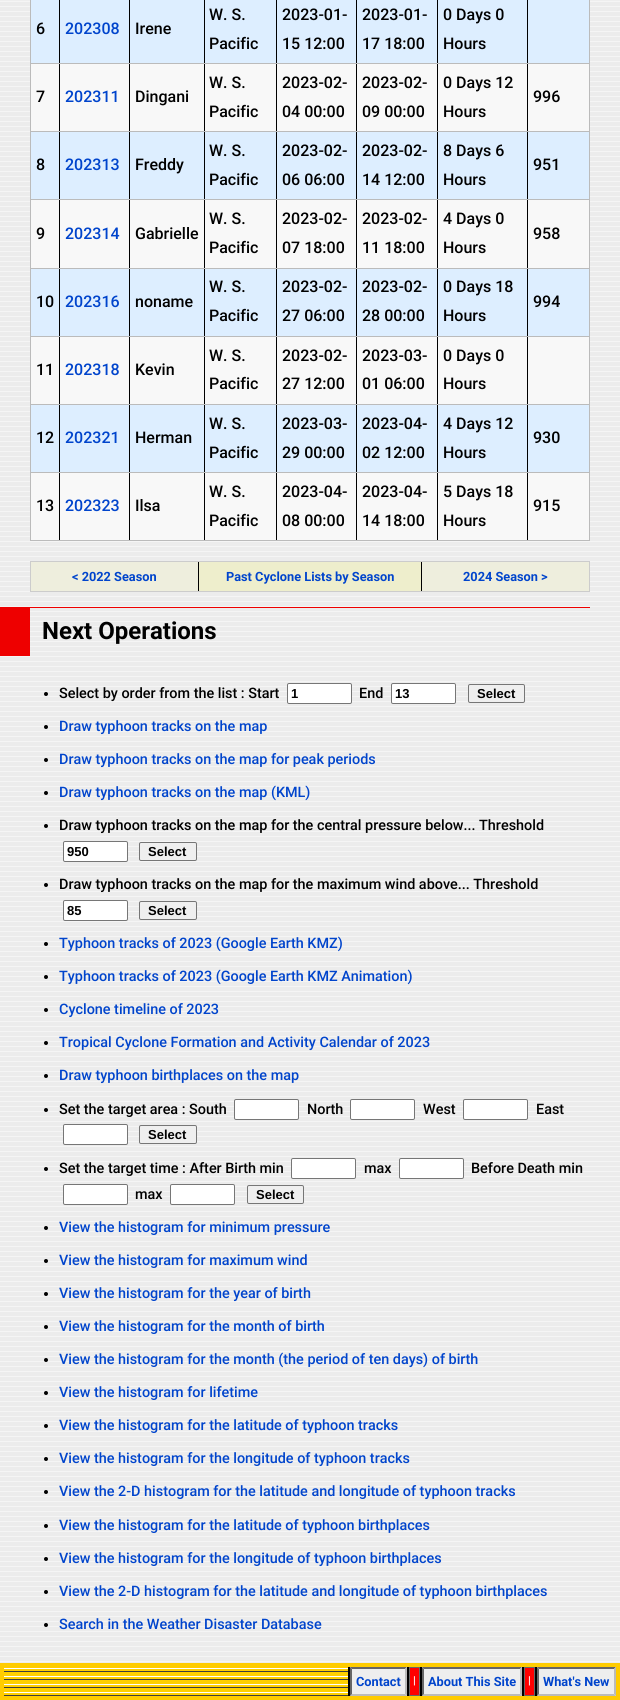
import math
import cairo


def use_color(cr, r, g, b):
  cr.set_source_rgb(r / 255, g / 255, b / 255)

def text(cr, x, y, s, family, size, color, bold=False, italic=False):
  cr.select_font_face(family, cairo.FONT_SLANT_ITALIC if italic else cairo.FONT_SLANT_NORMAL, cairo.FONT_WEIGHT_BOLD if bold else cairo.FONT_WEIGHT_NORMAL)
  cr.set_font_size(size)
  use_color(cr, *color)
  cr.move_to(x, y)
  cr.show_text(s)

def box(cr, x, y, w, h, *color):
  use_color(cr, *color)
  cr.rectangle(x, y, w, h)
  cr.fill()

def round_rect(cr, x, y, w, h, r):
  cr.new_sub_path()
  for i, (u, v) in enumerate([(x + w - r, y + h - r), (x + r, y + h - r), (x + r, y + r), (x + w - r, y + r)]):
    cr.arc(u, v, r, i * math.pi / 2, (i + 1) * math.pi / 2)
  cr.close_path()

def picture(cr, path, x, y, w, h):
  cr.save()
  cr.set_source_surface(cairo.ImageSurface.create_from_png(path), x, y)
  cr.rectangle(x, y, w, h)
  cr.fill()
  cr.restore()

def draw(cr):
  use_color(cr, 238, 238, 238)
  cr.paint()
  picture(cr, "img_01.png", 0, 1, 620, 1662)
  box(cr, 30, 0, 560, 541, 187, 187, 187)
  box(cr, 59, 0, 469, 63, 0, 0, 0)
  box(cr, 31, 0, 28, 63, 221, 238, 255)
  box(cr, 60, 0, 69, 63, 221, 238, 255)
  box(cr, 130, 0, 74, 63, 221, 238, 255)
  box(cr, 205, 0, 71, 63, 221, 238, 255)
  box(cr, 277, 0, 79, 63, 221, 238, 255)
  box(cr, 357, 0, 80, 63, 221, 238, 255)
  box(cr, 438, 0, 89, 63, 221, 238, 255)
  box(cr, 528, 0, 61, 63, 221, 238, 255)
  box(cr, 59, 64, 469, 67, 0, 0, 0)
  box(cr, 31, 64, 28, 67, 248, 248, 248)
  box(cr, 60, 64, 69, 67, 248, 248, 248)
  box(cr, 130, 64, 74, 67, 248, 248, 248)
  box(cr, 205, 64, 71, 67, 248, 248, 248)
  box(cr, 277, 64, 79, 67, 248, 248, 248)
  box(cr, 357, 64, 80, 67, 248, 248, 248)
  box(cr, 438, 64, 89, 67, 248, 248, 248)
  box(cr, 528, 64, 61, 67, 248, 248, 248)
  box(cr, 59, 132, 469, 67, 0, 0, 0)
  box(cr, 31, 132, 28, 67, 221, 238, 255)
  box(cr, 60, 132, 69, 67, 221, 238, 255)
  box(cr, 130, 132, 74, 67, 221, 238, 255)
  box(cr, 205, 132, 71, 67, 221, 238, 255)
  box(cr, 277, 132, 79, 67, 221, 238, 255)
  box(cr, 357, 132, 80, 67, 221, 238, 255)
  box(cr, 438, 132, 89, 67, 221, 238, 255)
  box(cr, 528, 132, 61, 67, 221, 238, 255)
  box(cr, 59, 200, 469, 68, 0, 0, 0)
  box(cr, 31, 200, 28, 68, 248, 248, 248)
  box(cr, 60, 200, 69, 68, 248, 248, 248)
  box(cr, 130, 200, 74, 68, 248, 248, 248)
  box(cr, 205, 200, 71, 68, 248, 248, 248)
  box(cr, 277, 200, 79, 68, 248, 248, 248)
  box(cr, 357, 200, 80, 68, 248, 248, 248)
  box(cr, 438, 200, 89, 68, 248, 248, 248)
  box(cr, 528, 200, 61, 68, 248, 248, 248)
  box(cr, 59, 269, 469, 67, 0, 0, 0)
  box(cr, 31, 269, 28, 67, 221, 238, 255)
  box(cr, 60, 269, 69, 67, 221, 238, 255)
  box(cr, 130, 269, 74, 67, 221, 238, 255)
  box(cr, 205, 269, 71, 67, 221, 238, 255)
  box(cr, 277, 269, 79, 67, 221, 238, 255)
  box(cr, 357, 269, 80, 67, 221, 238, 255)
  box(cr, 438, 269, 89, 67, 221, 238, 255)
  box(cr, 528, 269, 61, 67, 221, 238, 255)
  box(cr, 59, 337, 469, 67, 0, 0, 0)
  box(cr, 31, 337, 28, 67, 248, 248, 248)
  box(cr, 60, 337, 69, 67, 248, 248, 248)
  box(cr, 130, 337, 74, 67, 248, 248, 248)
  box(cr, 205, 337, 71, 67, 248, 248, 248)
  box(cr, 277, 337, 79, 67, 248, 248, 248)
  box(cr, 357, 337, 80, 67, 248, 248, 248)
  box(cr, 438, 337, 89, 67, 248, 248, 248)
  box(cr, 528, 337, 61, 67, 248, 248, 248)
  box(cr, 59, 405, 469, 67, 0, 0, 0)
  box(cr, 31, 405, 28, 67, 221, 238, 255)
  box(cr, 60, 405, 69, 67, 221, 238, 255)
  box(cr, 130, 405, 74, 67, 221, 238, 255)
  box(cr, 205, 405, 71, 67, 221, 238, 255)
  box(cr, 277, 405, 79, 67, 221, 238, 255)
  box(cr, 357, 405, 80, 67, 221, 238, 255)
  box(cr, 438, 405, 89, 67, 221, 238, 255)
  box(cr, 528, 405, 61, 67, 221, 238, 255)
  box(cr, 59, 473, 469, 67, 0, 0, 0)
  box(cr, 31, 473, 28, 67, 248, 248, 248)
  box(cr, 60, 473, 69, 67, 248, 248, 248)
  box(cr, 130, 473, 74, 67, 248, 248, 248)
  box(cr, 205, 473, 71, 67, 248, 248, 248)
  box(cr, 277, 473, 79, 67, 248, 248, 248)
  box(cr, 357, 473, 80, 67, 248, 248, 248)
  box(cr, 438, 473, 89, 67, 248, 248, 248)
  box(cr, 528, 473, 61, 67, 248, 248, 248)
  box(cr, 30, 561, 560, 31, 204, 204, 204)
  box(cr, 198, 562, 224, 29, 0, 0, 0)
  box(cr, 31, 562, 167, 29, 238, 238, 221)
  box(cr, 199, 562, 222, 29, 238, 238, 204)
  box(cr, 422, 562, 167, 29, 238, 238, 221)
  box(cr, 30, 607, 560, 1, 238, 0, 0)
  box(cr, 0, 607, 30, 49, 238, 0, 0)
  use_color(cr, 0, 0, 0)
  cr.arc(46, 694, 2, 0, 2 * math.pi)
  cr.fill()
  use_color(cr, 255, 255, 255)
  round_rect(cr, 287.5, 683.5, 64, 20, 1.5)
  cr.fill_preserve()
  use_color(cr, 118, 118, 118)
  cr.set_line_width(1)
  cr.stroke()
  use_color(cr, 255, 255, 255)
  round_rect(cr, 391.5, 683.5, 64, 20, 1.5)
  cr.fill_preserve()
  use_color(cr, 118, 118, 118)
  cr.stroke()
  use_color(cr, 239, 239, 239)
  round_rect(cr, 468.5, 684.5, 56, 18, 1.5)
  cr.fill_preserve()
  use_color(cr, 118, 118, 118)
  cr.stroke()
  use_color(cr, 0, 0, 0)
  cr.arc(46, 727, 2, 0, 2 * math.pi)
  cr.fill()
  cr.arc(46, 760, 2, 0, 2 * math.pi)
  cr.fill()
  cr.arc(46, 793, 2, 0, 2 * math.pi)
  cr.fill()
  cr.arc(46, 826, 2, 0, 2 * math.pi)
  cr.fill()
  use_color(cr, 255, 255, 255)
  round_rect(cr, 63.5, 841.5, 64, 20, 1.5)
  cr.fill_preserve()
  use_color(cr, 118, 118, 118)
  cr.stroke()
  use_color(cr, 239, 239, 239)
  round_rect(cr, 139.5, 842.5, 57, 18, 1.5)
  cr.fill_preserve()
  use_color(cr, 118, 118, 118)
  cr.stroke()
  use_color(cr, 0, 0, 0)
  cr.arc(46, 885, 2, 0, 2 * math.pi)
  cr.fill()
  use_color(cr, 255, 255, 255)
  round_rect(cr, 63.5, 900.5, 64, 20, 1.5)
  cr.fill_preserve()
  use_color(cr, 118, 118, 118)
  cr.stroke()
  use_color(cr, 239, 239, 239)
  round_rect(cr, 139.5, 901.5, 57, 18, 1.5)
  cr.fill_preserve()
  use_color(cr, 118, 118, 118)
  cr.stroke()
  use_color(cr, 0, 0, 0)
  cr.arc(46, 944, 2, 0, 2 * math.pi)
  cr.fill()
  cr.arc(46, 977, 2, 0, 2 * math.pi)
  cr.fill()
  cr.arc(46, 1010, 2, 0, 2 * math.pi)
  cr.fill()
  cr.arc(46, 1043, 2, 0, 2 * math.pi)
  cr.fill()
  cr.arc(46, 1076, 2, 0, 2 * math.pi)
  cr.fill()
  cr.arc(46, 1110, 2, 0, 2 * math.pi)
  cr.fill()
  use_color(cr, 255, 255, 255)
  round_rect(cr, 234.5, 1099.5, 64, 20, 1.5)
  cr.fill_preserve()
  use_color(cr, 118, 118, 118)
  cr.stroke()
  use_color(cr, 255, 255, 255)
  round_rect(cr, 350.5, 1099.5, 64, 20, 1.5)
  cr.fill_preserve()
  use_color(cr, 118, 118, 118)
  cr.stroke()
  use_color(cr, 255, 255, 255)
  round_rect(cr, 463.5, 1099.5, 64, 20, 1.5)
  cr.fill_preserve()
  use_color(cr, 118, 118, 118)
  cr.stroke()
  use_color(cr, 255, 255, 255)
  round_rect(cr, 63.5, 1124.5, 64, 20, 1.5)
  cr.fill_preserve()
  use_color(cr, 118, 118, 118)
  cr.stroke()
  use_color(cr, 239, 239, 239)
  round_rect(cr, 139.5, 1125.5, 57, 18, 1.5)
  cr.fill_preserve()
  use_color(cr, 118, 118, 118)
  cr.stroke()
  use_color(cr, 0, 0, 0)
  cr.arc(46, 1169, 2, 0, 2 * math.pi)
  cr.fill()
  use_color(cr, 255, 255, 255)
  round_rect(cr, 291.5, 1158.5, 64, 20, 1.5)
  cr.fill_preserve()
  use_color(cr, 118, 118, 118)
  cr.stroke()
  use_color(cr, 255, 255, 255)
  round_rect(cr, 399.5, 1158.5, 64, 20, 1.5)
  cr.fill_preserve()
  use_color(cr, 118, 118, 118)
  cr.stroke()
  use_color(cr, 255, 255, 255)
  round_rect(cr, 63.5, 1184.5, 64, 20, 1.5)
  cr.fill_preserve()
  use_color(cr, 118, 118, 118)
  cr.stroke()
  use_color(cr, 255, 255, 255)
  round_rect(cr, 170.5, 1184.5, 64, 20, 1.5)
  cr.fill_preserve()
  use_color(cr, 118, 118, 118)
  cr.stroke()
  use_color(cr, 239, 239, 239)
  round_rect(cr, 247.5, 1185.5, 56, 18, 1.5)
  cr.fill_preserve()
  use_color(cr, 118, 118, 118)
  cr.stroke()
  use_color(cr, 0, 0, 0)
  cr.arc(46, 1228, 2, 0, 2 * math.pi)
  cr.fill()
  cr.arc(46, 1261, 2, 0, 2 * math.pi)
  cr.fill()
  cr.arc(46, 1294, 2, 0, 2 * math.pi)
  cr.fill()
  cr.arc(46, 1327, 2, 0, 2 * math.pi)
  cr.fill()
  cr.arc(46, 1360, 2, 0, 2 * math.pi)
  cr.fill()
  cr.arc(46, 1393, 2, 0, 2 * math.pi)
  cr.fill()
  cr.arc(46, 1426, 2, 0, 2 * math.pi)
  cr.fill()
  cr.arc(46, 1459, 2, 0, 2 * math.pi)
  cr.fill()
  cr.arc(46, 1492, 2, 0, 2 * math.pi)
  cr.fill()
  cr.arc(46, 1526, 2, 0, 2 * math.pi)
  cr.fill()
  cr.arc(46, 1559, 2, 0, 2 * math.pi)
  cr.fill()
  cr.arc(46, 1592, 2, 0, 2 * math.pi)
  cr.fill()
  cr.arc(46, 1625, 2, 0, 2 * math.pi)
  cr.fill()
  box(cr, 0, 1663, 620, 37, 255, 204, 0)
  box(cr, 348, 1667, 189, 29, 0, 0, 0)
  picture(cr, "img_02.png", 4, 1668, 344, 28)
  box(cr, 350, 1667, 57, 29, 238, 238, 238)
  use_color(cr, 102, 102, 102)
  cr.new_path()
  cr.move_to(350, 1667)
  cr.line_to(407, 1667)
  cr.line_to(405, 1669)
  cr.line_to(352, 1669)
  cr.close_path()
  cr.fill()
  use_color(cr, 187, 187, 187)
  cr.new_path()
  cr.move_to(407, 1667)
  cr.line_to(407, 1696)
  cr.line_to(405, 1694)
  cr.line_to(405, 1669)
  cr.close_path()
  cr.fill()
  cr.new_path()
  cr.move_to(407, 1696)
  cr.line_to(350, 1696)
  cr.line_to(352, 1694)
  cr.line_to(405, 1694)
  cr.close_path()
  cr.fill()
  use_color(cr, 102, 102, 102)
  cr.new_path()
  cr.move_to(350, 1696)
  cr.line_to(350, 1667)
  cr.line_to(352, 1669)
  cr.line_to(352, 1694)
  cr.close_path()
  cr.fill()
  use_color(cr, 255, 0, 0)
  cr.rectangle(409.5, 1667.5, 10, 28)
  cr.fill_preserve()
  use_color(cr, 102, 102, 102)
  cr.stroke()
  box(cr, 422, 1667, 100, 29, 238, 238, 238)
  use_color(cr, 102, 102, 102)
  cr.new_path()
  cr.move_to(422, 1667)
  cr.line_to(522, 1667)
  cr.line_to(520, 1669)
  cr.line_to(424, 1669)
  cr.close_path()
  cr.fill()
  use_color(cr, 187, 187, 187)
  cr.new_path()
  cr.move_to(522, 1667)
  cr.line_to(522, 1696)
  cr.line_to(520, 1694)
  cr.line_to(520, 1669)
  cr.close_path()
  cr.fill()
  cr.new_path()
  cr.move_to(522, 1696)
  cr.line_to(422, 1696)
  cr.line_to(424, 1694)
  cr.line_to(520, 1694)
  cr.close_path()
  cr.fill()
  use_color(cr, 102, 102, 102)
  cr.new_path()
  cr.move_to(422, 1696)
  cr.line_to(422, 1667)
  cr.line_to(424, 1669)
  cr.line_to(424, 1694)
  cr.close_path()
  cr.fill()
  use_color(cr, 255, 0, 0)
  cr.rectangle(524.5, 1667.5, 10, 28)
  cr.fill_preserve()
  use_color(cr, 102, 102, 102)
  cr.stroke()
  box(cr, 537, 1667, 79, 29, 238, 238, 238)
  use_color(cr, 102, 102, 102)
  cr.new_path()
  cr.move_to(537, 1667)
  cr.line_to(616, 1667)
  cr.line_to(614, 1669)
  cr.line_to(539, 1669)
  cr.close_path()
  cr.fill()
  use_color(cr, 187, 187, 187)
  cr.new_path()
  cr.move_to(616, 1667)
  cr.line_to(616, 1696)
  cr.line_to(614, 1694)
  cr.line_to(614, 1669)
  cr.close_path()
  cr.fill()
  cr.new_path()
  cr.move_to(616, 1696)
  cr.line_to(537, 1696)
  cr.line_to(539, 1694)
  cr.line_to(614, 1694)
  cr.close_path()
  cr.fill()
  use_color(cr, 102, 102, 102)
  cr.new_path()
  cr.move_to(537, 1696)
  cr.line_to(537, 1667)
  cr.line_to(539, 1669)
  cr.line_to(539, 1694)
  cr.close_path()
  cr.fill()
  text(cr, 36, 34, "6", "Roboto Medium", 16, (0, 0, 0))
  text(cr, 65, 34, "202308", "Roboto Medium", 16, (0, 68, 204))
  text(cr, 135, 34, "Irene", "Roboto Medium", 16, (0, 0, 0))
  text(cr, 209, 20, "W. S.", "Roboto Medium", 16, (0, 0, 0))
  text(cr, 209, 49, "Pacific", "Roboto Medium", 16, (0, 0, 0))
  text(cr, 282, 20, "2023-01-", "Roboto Medium", 16, (0, 0, 0))
  text(cr, 282, 49, "15 12:00", "Roboto Medium", 16, (0, 0, 0))
  text(cr, 362, 20, "2023-01-", "Roboto Medium", 16, (0, 0, 0))
  text(cr, 362, 49, "17 18:00", "Roboto Medium", 16, (0, 0, 0))
  text(cr, 443, 20, "0 Days 0", "Roboto Medium", 16, (0, 0, 0))
  text(cr, 443, 49, "Hours", "Roboto Medium", 16, (0, 0, 0))
  text(cr, 36, 102, "7", "Roboto Medium", 16, (0, 0, 0))
  text(cr, 65, 102, "202311", "Roboto Medium", 16, (0, 68, 204))
  text(cr, 135, 102, "Dingani", "Roboto Medium", 16, (0, 0, 0))
  text(cr, 209, 88, "W. S.", "Roboto Medium", 16, (0, 0, 0))
  text(cr, 209, 117, "Pacific", "Roboto Medium", 16, (0, 0, 0))
  text(cr, 282, 88, "2023-02-", "Roboto Medium", 16, (0, 0, 0))
  text(cr, 282, 117, "04 00:00", "Roboto Medium", 16, (0, 0, 0))
  text(cr, 362, 88, "2023-02-", "Roboto Medium", 16, (0, 0, 0))
  text(cr, 362, 117, "09 00:00", "Roboto Medium", 16, (0, 0, 0))
  text(cr, 443, 88, "0 Days 12", "Roboto Medium", 16, (0, 0, 0))
  text(cr, 443, 117, "Hours", "Roboto Medium", 16, (0, 0, 0))
  text(cr, 533, 102, "996", "Roboto Medium", 16, (0, 0, 0))
  text(cr, 36, 170, "8", "Roboto Medium", 16, (0, 0, 0))
  text(cr, 65, 170, "202313", "Roboto Medium", 16, (0, 68, 204))
  text(cr, 135, 170, "Freddy", "Roboto Medium", 16, (0, 0, 0))
  text(cr, 209, 156, "W. S.", "Roboto Medium", 16, (0, 0, 0))
  text(cr, 209, 185, "Pacific", "Roboto Medium", 16, (0, 0, 0))
  text(cr, 282, 156, "2023-02-", "Roboto Medium", 16, (0, 0, 0))
  text(cr, 282, 185, "06 06:00", "Roboto Medium", 16, (0, 0, 0))
  text(cr, 362, 156, "2023-02-", "Roboto Medium", 16, (0, 0, 0))
  text(cr, 362, 185, "14 12:00", "Roboto Medium", 16, (0, 0, 0))
  text(cr, 443, 156, "8 Days 6", "Roboto Medium", 16, (0, 0, 0))
  text(cr, 443, 185, "Hours", "Roboto Medium", 16, (0, 0, 0))
  text(cr, 533, 170, "951", "Roboto Medium", 16, (0, 0, 0))
  text(cr, 36, 239, "9", "Roboto Medium", 16, (0, 0, 0))
  text(cr, 65, 239, "202314", "Roboto Medium", 16, (0, 68, 204))
  text(cr, 135, 239, "Gabrielle", "Roboto Medium", 16, (0, 0, 0))
  text(cr, 209, 224, "W. S.", "Roboto Medium", 16, (0, 0, 0))
  text(cr, 209, 253, "Pacific", "Roboto Medium", 16, (0, 0, 0))
  text(cr, 282, 224, "2023-02-", "Roboto Medium", 16, (0, 0, 0))
  text(cr, 282, 253, "07 18:00", "Roboto Medium", 16, (0, 0, 0))
  text(cr, 362, 224, "2023-02-", "Roboto Medium", 16, (0, 0, 0))
  text(cr, 362, 253, "11 18:00", "Roboto Medium", 16, (0, 0, 0))
  text(cr, 443, 224, "4 Days 0", "Roboto Medium", 16, (0, 0, 0))
  text(cr, 443, 253, "Hours", "Roboto Medium", 16, (0, 0, 0))
  text(cr, 533, 239, "958", "Roboto Medium", 16, (0, 0, 0))
  text(cr, 36, 307, "10", "Roboto Medium", 16, (0, 0, 0))
  text(cr, 65, 307, "202316", "Roboto Medium", 16, (0, 68, 204))
  text(cr, 135, 307, "noname", "Roboto Medium", 16, (0, 0, 0))
  text(cr, 209, 292, "W. S.", "Roboto Medium", 16, (0, 0, 0))
  text(cr, 209, 321, "Pacific", "Roboto Medium", 16, (0, 0, 0))
  text(cr, 282, 292, "2023-02-", "Roboto Medium", 16, (0, 0, 0))
  text(cr, 282, 321, "27 06:00", "Roboto Medium", 16, (0, 0, 0))
  text(cr, 362, 292, "2023-02-", "Roboto Medium", 16, (0, 0, 0))
  text(cr, 362, 321, "28 00:00", "Roboto Medium", 16, (0, 0, 0))
  text(cr, 443, 292, "0 Days 18", "Roboto Medium", 16, (0, 0, 0))
  text(cr, 443, 321, "Hours", "Roboto Medium", 16, (0, 0, 0))
  text(cr, 533, 307, "994", "Roboto Medium", 16, (0, 0, 0))
  text(cr, 36, 375, "11", "Roboto Medium", 16, (0, 0, 0))
  text(cr, 65, 375, "202318", "Roboto Medium", 16, (0, 68, 204))
  text(cr, 135, 375, "Kevin", "Roboto Medium", 16, (0, 0, 0))
  text(cr, 209, 361, "W. S.", "Roboto Medium", 16, (0, 0, 0))
  text(cr, 209, 389, "Pacific", "Roboto Medium", 16, (0, 0, 0))
  text(cr, 282, 361, "2023-02-", "Roboto Medium", 16, (0, 0, 0))
  text(cr, 282, 389, "27 12:00", "Roboto Medium", 16, (0, 0, 0))
  text(cr, 362, 361, "2023-03-", "Roboto Medium", 16, (0, 0, 0))
  text(cr, 362, 389, "01 06:00", "Roboto Medium", 16, (0, 0, 0))
  text(cr, 443, 361, "0 Days 0", "Roboto Medium", 16, (0, 0, 0))
  text(cr, 443, 389, "Hours", "Roboto Medium", 16, (0, 0, 0))
  text(cr, 36, 443, "12", "Roboto Medium", 16, (0, 0, 0))
  text(cr, 65, 443, "202321", "Roboto Medium", 16, (0, 68, 204))
  text(cr, 135, 443, "Herman", "Roboto Medium", 16, (0, 0, 0))
  text(cr, 209, 429, "W. S.", "Roboto Medium", 16, (0, 0, 0))
  text(cr, 209, 458, "Pacific", "Roboto Medium", 16, (0, 0, 0))
  text(cr, 282, 429, "2023-03-", "Roboto Medium", 16, (0, 0, 0))
  text(cr, 282, 458, "29 00:00", "Roboto Medium", 16, (0, 0, 0))
  text(cr, 362, 429, "2023-04-", "Roboto Medium", 16, (0, 0, 0))
  text(cr, 362, 458, "02 12:00", "Roboto Medium", 16, (0, 0, 0))
  text(cr, 443, 429, "4 Days 12", "Roboto Medium", 16, (0, 0, 0))
  text(cr, 443, 458, "Hours", "Roboto Medium", 16, (0, 0, 0))
  text(cr, 533, 443, "930", "Roboto Medium", 16, (0, 0, 0))
  text(cr, 36, 511, "13", "Roboto Medium", 16, (0, 0, 0))
  text(cr, 65, 511, "202323", "Roboto Medium", 16, (0, 68, 204))
  text(cr, 135, 511, "Ilsa", "Roboto Medium", 16, (0, 0, 0))
  text(cr, 209, 497, "W. S.", "Roboto Medium", 16, (0, 0, 0))
  text(cr, 209, 526, "Pacific", "Roboto Medium", 16, (0, 0, 0))
  text(cr, 282, 497, "2023-04-", "Roboto Medium", 16, (0, 0, 0))
  text(cr, 282, 526, "08 00:00", "Roboto Medium", 16, (0, 0, 0))
  text(cr, 362, 497, "2023-04-", "Roboto Medium", 16, (0, 0, 0))
  text(cr, 362, 526, "14 18:00", "Roboto Medium", 16, (0, 0, 0))
  text(cr, 443, 497, "5 Days 18", "Roboto Medium", 16, (0, 0, 0))
  text(cr, 443, 526, "Hours", "Roboto Medium", 16, (0, 0, 0))
  text(cr, 533, 511, "915", "Roboto Medium", 16, (0, 0, 0))
  text(cr, 72, 581, "< 2022 Season", "Roboto", 12.75, (0, 68, 204), bold=True)
  text(cr, 226, 581, "Past Cyclone Lists by Season", "Roboto", 12.75, (0, 68, 204), bold=True)
  text(cr, 463, 581, "2024 Season >", "Roboto", 12.75, (0, 68, 204), bold=True)
  text(cr, 42, 639, "Next Operations", "Roboto", 24, (0, 0, 0), bold=True)
  text(cr, 59, 698, "Select by order from the list : Start", "Roboto Medium", 14.4, (0, 0, 0))
  text(cr, 291, 698, "1", "Liberation Sans", 13, (0, 0, 0), bold=True)
  text(cr, 359, 698, "End", "Roboto Medium", 14.4, (0, 0, 0))
  text(cr, 395, 698, "13", "Liberation Sans", 13, (0, 0, 0), bold=True)
  text(cr, 477, 698, "Select", "Liberation Sans", 13, (0, 0, 0), bold=True)
  text(cr, 59, 731, "Draw typhoon tracks on the map", "Roboto Medium", 14.4, (0, 68, 204))
  text(cr, 59, 764, "Draw typhoon tracks on the map for peak periods", "Roboto Medium", 14.4, (0, 68, 204))
  text(cr, 59, 797, "Draw typhoon tracks on the map (KML)", "Roboto Medium", 14.4, (0, 68, 204))
  text(cr, 59, 830, "Draw typhoon tracks on the map for the central pressure below... Threshold", "Roboto Medium", 14.4, (0, 0, 0))
  text(cr, 67, 856, "950", "Liberation Sans", 13, (0, 0, 0), bold=True)
  text(cr, 148, 856, "Select", "Liberation Sans", 13, (0, 0, 0), bold=True)
  text(cr, 59, 889, "Draw typhoon tracks on the map for the maximum wind above... Threshold", "Roboto Medium", 14.4, (0, 0, 0))
  text(cr, 67, 915, "85", "Liberation Sans", 13, (0, 0, 0), bold=True)
  text(cr, 148, 915, "Select", "Liberation Sans", 13, (0, 0, 0), bold=True)
  text(cr, 59, 948, "Typhoon tracks of 2023 (Google Earth KMZ)", "Roboto Medium", 14.4, (0, 68, 204))
  text(cr, 59, 981, "Typhoon tracks of 2023 (Google Earth KMZ Animation)", "Roboto Medium", 14.4, (0, 68, 204))
  text(cr, 59, 1014, "Cyclone timeline of 2023", "Roboto Medium", 14.4, (0, 68, 204))
  text(cr, 59, 1047, "Tropical Cyclone Formation and Activity Calendar of 2023", "Roboto Medium", 14.4, (0, 68, 204))
  text(cr, 59, 1080, "Draw typhoon birthplaces on the map", "Roboto Medium", 14.4, (0, 68, 204))
  text(cr, 59, 1114, "Set the target area : South", "Roboto Medium", 14.4, (0, 0, 0))
  text(cr, 307, 1114, "North", "Roboto Medium", 14.4, (0, 0, 0))
  text(cr, 423, 1114, "West", "Roboto Medium", 14.4, (0, 0, 0))
  text(cr, 536, 1114, "East", "Roboto Medium", 14.4, (0, 0, 0))
  text(cr, 148, 1139, "Select", "Liberation Sans", 13, (0, 0, 0), bold=True)
  text(cr, 59, 1173, "Set the target time : After Birth min", "Roboto Medium", 14.4, (0, 0, 0))
  text(cr, 364, 1173, "max", "Roboto Medium", 14.4, (0, 0, 0))
  text(cr, 471, 1173, "Before Death min", "Roboto Medium", 14.4, (0, 0, 0))
  text(cr, 135, 1199, "max", "Roboto Medium", 14.4, (0, 0, 0))
  text(cr, 256, 1199, "Select", "Liberation Sans", 13, (0, 0, 0), bold=True)
  text(cr, 59, 1232, "View the histogram for minimum pressure", "Roboto Medium", 14.4, (0, 68, 204))
  text(cr, 59, 1265, "View the histogram for maximum wind", "Roboto Medium", 14.4, (0, 68, 204))
  text(cr, 59, 1298, "View the histogram for the year of birth", "Roboto Medium", 14.4, (0, 68, 204))
  text(cr, 59, 1331, "View the histogram for the month of birth", "Roboto Medium", 14.4, (0, 68, 204))
  text(cr, 59, 1364, "View the histogram for the month (the period of ten days) of birth", "Roboto Medium", 14.4, (0, 68, 204))
  text(cr, 59, 1397, "View the histogram for lifetime", "Roboto Medium", 14.4, (0, 68, 204))
  text(cr, 59, 1430, "View the histogram for the latitude of typhoon tracks", "Roboto Medium", 14.4, (0, 68, 204))
  text(cr, 59, 1463, "View the histogram for the longitude of typhoon tracks", "Roboto Medium", 14.4, (0, 68, 204))
  text(cr, 59, 1496, "View the 2-D histogram for the latitude and longitude of typhoon tracks", "Roboto Medium", 14.4, (0, 68, 204))
  text(cr, 59, 1530, "View the histogram for the latitude of typhoon birthplaces", "Roboto Medium", 14.4, (0, 68, 204))
  text(cr, 59, 1563, "View the histogram for the longitude of typhoon birthplaces", "Roboto Medium", 14.4, (0, 68, 204))
  text(cr, 59, 1596, "View the 2-D histogram for the latitude and longitude of typhoon birthplaces", "Roboto Medium", 14.4, (0, 68, 204))
  text(cr, 59, 1629, "Search in the Weather Disaster Database", "Roboto Medium", 14.4, (0, 68, 204))
  text(cr, 356, 1686, "Contact", "Roboto", 12.75, (0, 68, 204), bold=True)
  text(cr, 413, 1684, "|", "Roboto", 11, (255, 255, 255), bold=True)
  text(cr, 428, 1686, "About This Site", "Roboto", 12.75, (0, 68, 204), bold=True)
  text(cr, 528, 1684, "|", "Roboto", 11, (255, 255, 255), bold=True)
  text(cr, 543, 1686, "What's New", "Roboto", 12.75, (0, 68, 204), bold=True)


surface = cairo.ImageSurface(cairo.FORMAT_RGB24, 620, 1700)
cr = cairo.Context(surface)
options = cairo.FontOptions()
options.set_hint_metrics(cairo.HINT_METRICS_OFF)
options.set_hint_style(cairo.HINT_STYLE_NONE)
cr.set_font_options(options)
cr.set_miter_limit(4)
draw(cr)
surface.write_to_png("out.png")
